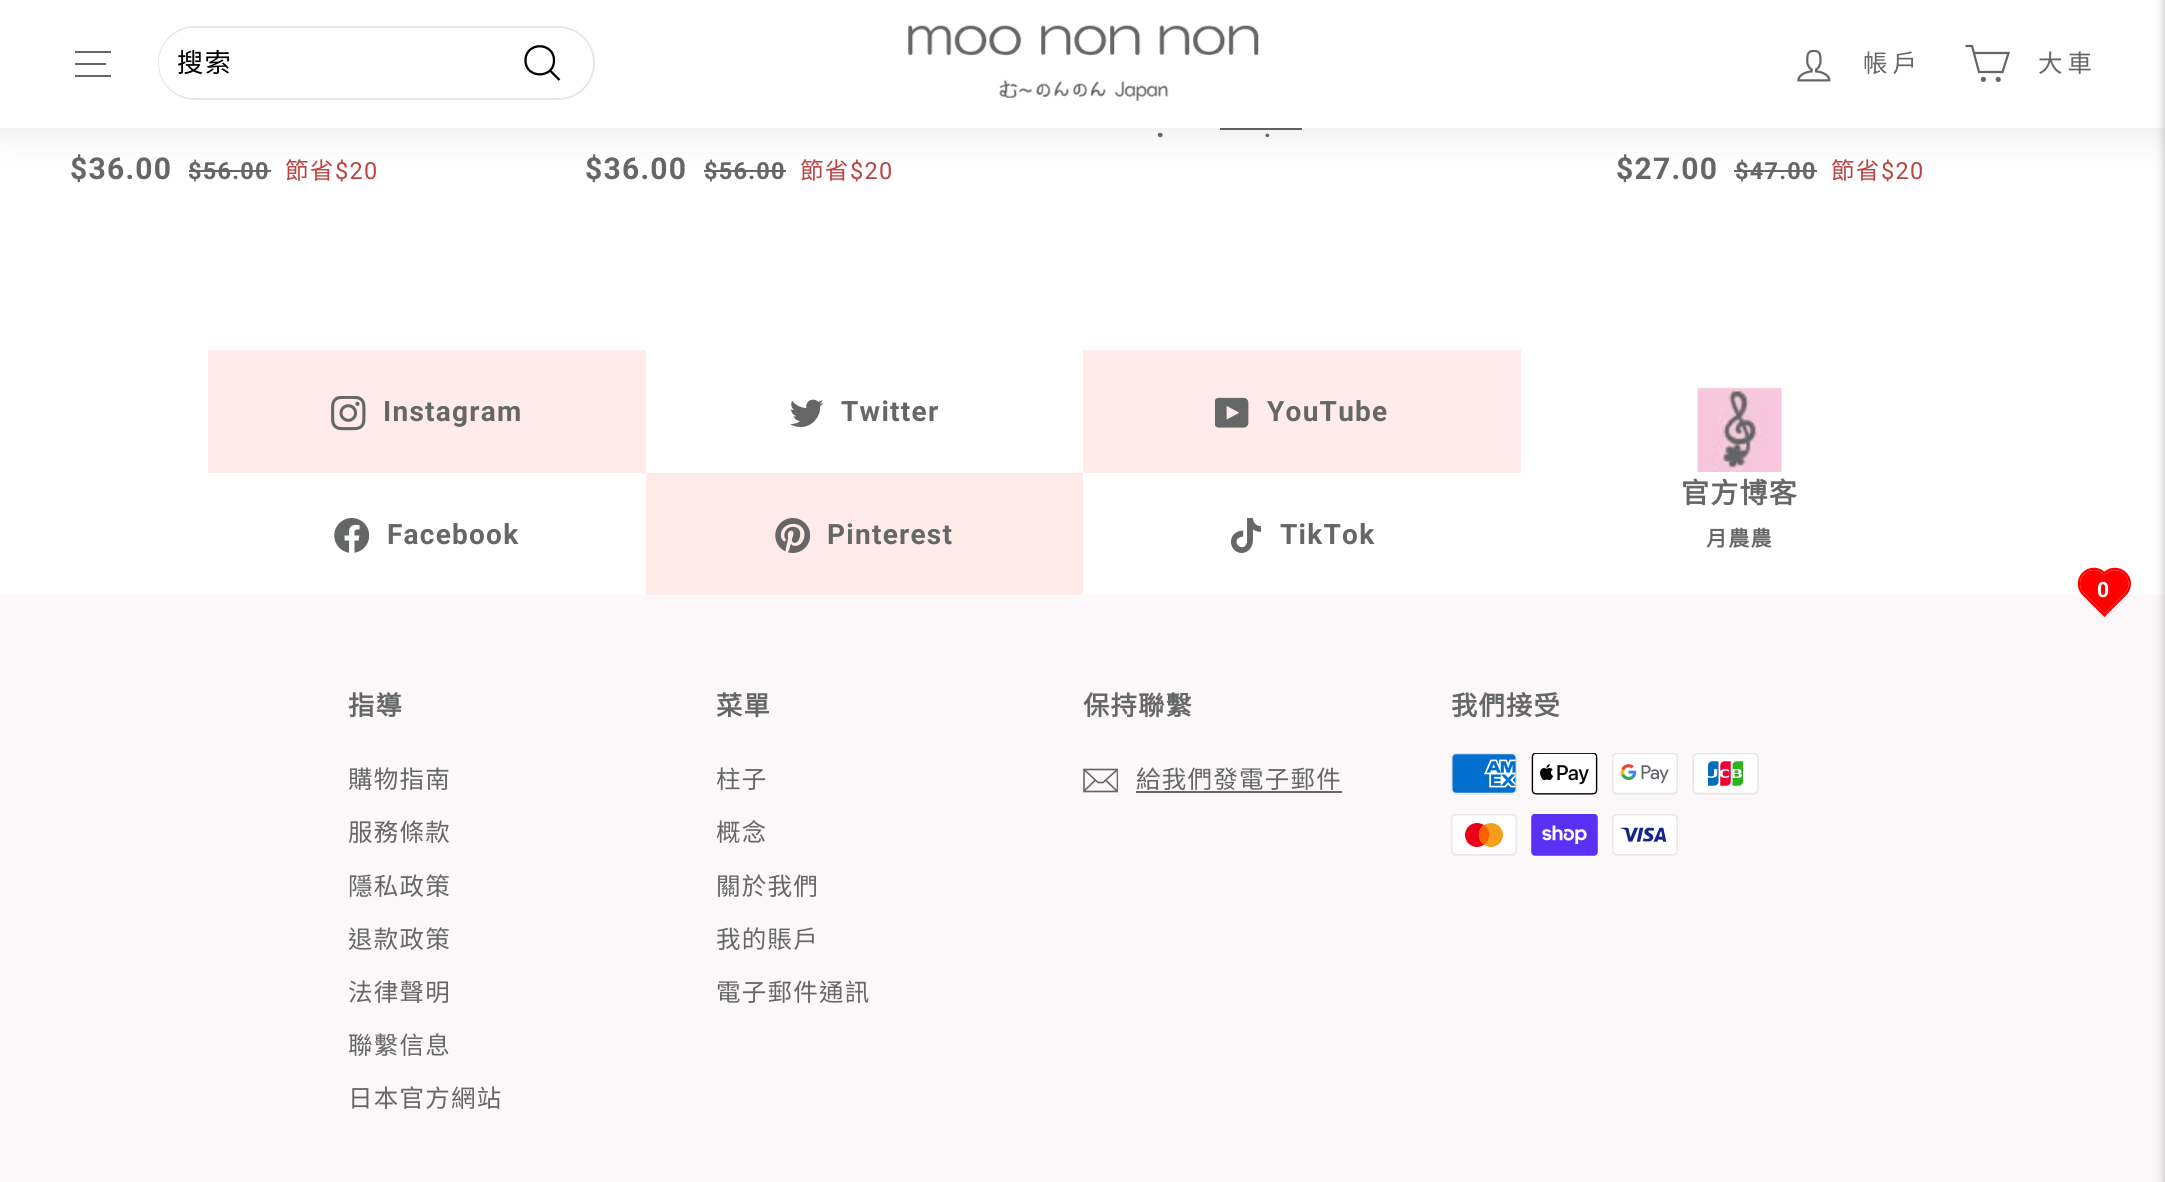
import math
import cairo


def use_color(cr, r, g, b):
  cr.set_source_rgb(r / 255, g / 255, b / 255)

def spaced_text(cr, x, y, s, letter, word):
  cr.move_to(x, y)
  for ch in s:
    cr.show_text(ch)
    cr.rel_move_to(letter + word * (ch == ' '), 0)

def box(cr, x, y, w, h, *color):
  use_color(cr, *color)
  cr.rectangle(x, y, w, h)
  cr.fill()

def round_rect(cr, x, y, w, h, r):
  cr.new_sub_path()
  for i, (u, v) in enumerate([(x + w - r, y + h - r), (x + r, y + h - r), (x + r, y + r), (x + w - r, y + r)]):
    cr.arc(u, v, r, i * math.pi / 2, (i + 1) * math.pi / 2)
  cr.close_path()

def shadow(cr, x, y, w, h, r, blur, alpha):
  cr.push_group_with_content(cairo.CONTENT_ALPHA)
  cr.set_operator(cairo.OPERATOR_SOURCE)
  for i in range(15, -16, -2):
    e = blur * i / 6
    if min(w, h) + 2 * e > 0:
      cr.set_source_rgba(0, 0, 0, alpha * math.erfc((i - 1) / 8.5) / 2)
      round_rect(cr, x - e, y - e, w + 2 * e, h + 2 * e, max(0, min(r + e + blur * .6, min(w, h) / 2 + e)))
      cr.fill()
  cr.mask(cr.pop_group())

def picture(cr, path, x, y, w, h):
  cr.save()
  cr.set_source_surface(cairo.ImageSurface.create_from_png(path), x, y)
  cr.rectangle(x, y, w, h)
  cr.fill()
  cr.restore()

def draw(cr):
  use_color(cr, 255, 255, 255)
  cr.paint()
  box(cr, 1220, 128, 82, 2, 101, 103, 102)
  box(cr, 189, 170, 82, 2, 101, 103, 102)
  box(cr, 704, 170, 82, 2, 101, 103, 102)
  box(cr, 1734, 170, 83, 2, 101, 103, 102)
  use_color(cr, 0, 0, 0)
  shadow(cr, 0, 0, 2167, 128, 0, 22, 0.1)
  box(cr, 0, 0, 2165, 128, 255, 255, 255)
  box(cr, 75, 51, 36, 2, 101, 103, 102)
  box(cr, 75, 63, 31, 2, 101, 103, 102)
  box(cr, 75, 75, 36, 2, 101, 103, 102)
  round_rect(cr, 159, 27, 435, 72, 36)
  use_color(cr, 232, 232, 225)
  cr.stroke()
  use_color(cr, 255, 255, 255)
  round_rect(cr, 159, 28, 434, 70, 35)
  cr.fill()
  cr.new_path()
  cr.move_to(554, 60.5)
  cr.curve_to(554, 79, 525.5, 79, 525.5, 60.5)
  cr.curve_to(525.5, 41.5, 554, 41.5, 554, 60.5)
  cr.close_path()
  cr.move_to(559.5, 80)
  cr.line_to(550, 70.5)
  use_color(cr, 0, 0, 0)
  cr.set_line_width(2.3)
  cr.stroke()
  picture(cr, "img_01.png", 908, 25, 351, 76)
  picture(cr, "img_02.png", 1797, 49, 34, 33)
  cr.new_path()
  cr.move_to(1974, 53)
  cr.line_to(2008.5, 53)
  cr.line_to(2002.5, 72)
  cr.line_to(1979, 72)
  cr.line_to(1972, 46)
  cr.line_to(1965.5, 46)
  use_color(cr, 101, 103, 102)
  cr.set_line_width(2.2)
  cr.stroke()
  cr.arc(1983.4, 79.4, 1.5, 0, 2 * math.pi)
  cr.fill_preserve()
  cr.stroke()
  cr.arc(1998.2, 79.4, 1.5, 0, 2 * math.pi)
  cr.fill_preserve()
  cr.stroke()
  box(cr, 208, 350, 438, 123, 255, 235, 234)
  picture(cr, "img_03.png", 331, 396, 35, 35)
  picture(cr, "img_04.png", 790, 399, 34, 28)
  box(cr, 1083, 350, 438, 123, 255, 235, 234)
  picture(cr, "img_05.png", 1215, 397, 34, 31)
  picture(cr, "img_06.png", 334, 518, 35, 35)
  box(cr, 646, 473, 437, 122, 255, 235, 234)
  picture(cr, "img_07.png", 775, 518, 35, 35)
  picture(cr, "img_08.png", 1231, 518, 30, 35)
  picture(cr, "img_09.png", 1697, 387, 85, 85)
  box(cr, 0, 595, 2165, 587, 252, 248, 249)
  cr.save()
  cr.rectangle(1083, 763, 35, 35)
  cr.clip()
  cr.new_path()
  cr.move_to(1117.5, 791.5)
  cr.line_to(1084, 791.5)
  cr.line_to(1084, 769.5)
  cr.line_to(1117.5, 769.5)
  cr.close_path()
  cr.move_to(1084, 769.5)
  cr.line_to(1098, 782.5)
  cr.line_to(1103, 782.5)
  cr.line_to(1117.5, 769.5)
  cr.move_to(1095, 780.5)
  cr.line_to(1084, 791)
  cr.move_to(1117.5, 791.5)
  cr.line_to(1106, 780.5)
  use_color(cr, 101, 103, 102)
  cr.set_line_width(1.6)
  cr.stroke()
  cr.restore()
  box(cr, 1136, 791, 206, 2, 101, 103, 102)
  picture(cr, "img_10.png", 1451, 753, 66, 42)
  picture(cr, "img_11.png", 1531, 753, 67, 42)
  picture(cr, "img_12.png", 1612, 753, 66, 42)
  picture(cr, "img_13.png", 1692, 753, 67, 42)
  picture(cr, "img_14.png", 1451, 814, 66, 42)
  picture(cr, "img_15.png", 1531, 814, 67, 42)
  picture(cr, "img_16.png", 1612, 814, 66, 42)
  picture(cr, "img_17.png", 2077, 567, 54, 50)
  use_color(cr, 0, 0, 0)
  shadow(cr, 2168, 0, 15, 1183, 0, 6, 0.5)
  cr.select_font_face("Noto Sans CJK TC")
  cr.set_font_size(26.25)
  use_color(cr, 0, 0, 0)
  spaced_text(cr, 177, 72, "搜索", 1.25, 0)
  cr.set_font_size(24.5)
  use_color(cr, 101, 103, 102)
  spaced_text(cr, 1863, 72, "帳戶", 5, 0)
  spaced_text(cr, 2038, 72, "大車", 5, 0)
  cr.select_font_face("Roboto", cairo.FONT_SLANT_NORMAL, cairo.FONT_WEIGHT_BOLD)
  cr.set_font_size(30)
  spaced_text(cr, 1156, 137, ".", 1.25, 0)
  cr.set_font_size(23.5)
  spaced_text(cr, 1264, 137, ".", 1.25, 0)
  cr.set_font_size(30)
  spaced_text(cr, 70, 179, "$36.00", 1.25, 0)
  cr.set_font_size(23.5)
  spaced_text(cr, 188, 179, "$56.00", 1.25, 0)
  cr.select_font_face("Noto Sans CJK TC")
  use_color(cr, 186, 68, 68)
  spaced_text(cr, 285, 179, "節省", 1.25, 0)
  cr.select_font_face("Roboto")
  spaced_text(cr, 335, 179, "$20", 1.25, 0)
  cr.select_font_face("Roboto", cairo.FONT_SLANT_NORMAL, cairo.FONT_WEIGHT_BOLD)
  cr.set_font_size(30)
  use_color(cr, 101, 103, 102)
  spaced_text(cr, 585, 179, "$36.00", 1.25, 0)
  cr.set_font_size(23.5)
  spaced_text(cr, 704, 179, "$56.00", 1.25, 0)
  cr.select_font_face("Noto Sans CJK TC")
  use_color(cr, 186, 68, 68)
  spaced_text(cr, 800, 179, "節省", 1.25, 0)
  cr.select_font_face("Roboto")
  spaced_text(cr, 850, 179, "$20", 1.25, 0)
  cr.select_font_face("Roboto", cairo.FONT_SLANT_NORMAL, cairo.FONT_WEIGHT_BOLD)
  cr.set_font_size(30)
  use_color(cr, 101, 103, 102)
  spaced_text(cr, 1616, 179, "$27.00", 1.25, 0)
  cr.set_font_size(23.5)
  spaced_text(cr, 1735, 179, "$47.00", 1.25, 0)
  cr.select_font_face("Noto Sans CJK TC")
  use_color(cr, 186, 68, 68)
  spaced_text(cr, 1831, 179, "節省", 1.25, 0)
  cr.select_font_face("Roboto")
  spaced_text(cr, 1881, 179, "$20", 1.25, 0)
  cr.select_font_face("Roboto", cairo.FONT_SLANT_NORMAL, cairo.FONT_WEIGHT_BOLD)
  cr.set_font_size(28)
  use_color(cr, 101, 103, 102)
  spaced_text(cr, 383, 421, "Instagram", 1.25, 0)
  spaced_text(cr, 841, 421, "Twitter", 1.25, 0)
  spaced_text(cr, 1267, 421, "YouTube", 1.25, 0)
  spaced_text(cr, 387, 544, "Facebook", 1.25, 0)
  spaced_text(cr, 827, 544, "Pinterest", 1.25, 0)
  spaced_text(cr, 1280, 544, "TikTok", 1.25, 0)
  cr.select_font_face("Noto Sans CJK TC", cairo.FONT_SLANT_NORMAL, cairo.FONT_WEIGHT_BOLD)
  spaced_text(cr, 1681, 503, "官方博客", 1.25, 0)
  cr.set_font_size(21)
  spaced_text(cr, 1706, 546, "月農農", 1.25, 0)
  cr.set_font_size(26.25)
  spaced_text(cr, 348, 715, "指導", 1.25, 0)
  cr.select_font_face("Noto Sans CJK TC")
  cr.set_font_size(24.5)
  spaced_text(cr, 348, 788, "購物指南", 1.25, 0)
  spaced_text(cr, 348, 841, "服務條款", 1.25, 0)
  spaced_text(cr, 348, 895, "隱私政策", 1.25, 0)
  spaced_text(cr, 348, 948, "退款政策", 1.25, 0)
  spaced_text(cr, 348, 1001, "法律聲明", 1.25, 0)
  spaced_text(cr, 348, 1054, "聯繫信息", 1.25, 0)
  spaced_text(cr, 348, 1107, "日本官方網站", 1.25, 0)
  cr.select_font_face("Noto Sans CJK TC", cairo.FONT_SLANT_NORMAL, cairo.FONT_WEIGHT_BOLD)
  cr.set_font_size(26.25)
  spaced_text(cr, 716, 715, "菜單", 1.25, 0)
  cr.select_font_face("Noto Sans CJK TC")
  cr.set_font_size(24.5)
  spaced_text(cr, 716, 788, "柱子", 1.25, 0)
  spaced_text(cr, 716, 841, "概念", 1.25, 0)
  spaced_text(cr, 716, 895, "關於我們", 1.25, 0)
  spaced_text(cr, 716, 948, "我的賬戶", 1.25, 0)
  spaced_text(cr, 716, 1001, "電子郵件通訊", 1.25, 0)
  cr.select_font_face("Noto Sans CJK TC", cairo.FONT_SLANT_NORMAL, cairo.FONT_WEIGHT_BOLD)
  cr.set_font_size(26.25)
  spaced_text(cr, 1083, 715, "保持聯繫", 1.25, 0)
  cr.select_font_face("Noto Sans CJK TC")
  cr.set_font_size(24.5)
  spaced_text(cr, 1136, 788, "給我們發電子郵件", 1.25, 0)
  cr.select_font_face("Noto Sans CJK TC", cairo.FONT_SLANT_NORMAL, cairo.FONT_WEIGHT_BOLD)
  cr.set_font_size(26.25)
  spaced_text(cr, 1451, 715, "我們接受", 1.25, 0)
  cr.select_font_face("Roboto", cairo.FONT_SLANT_NORMAL, cairo.FONT_WEIGHT_BOLD)
  cr.set_font_size(21)
  use_color(cr, 255, 255, 255)
  spaced_text(cr, 2097, 597, "0", 1.25, 0)


surface = cairo.ImageSurface(cairo.FORMAT_RGB24, 2165, 1182)
cr = cairo.Context(surface)
options = cairo.FontOptions()
options.set_hint_metrics(cairo.HINT_METRICS_OFF)
options.set_hint_style(cairo.HINT_STYLE_NONE)
cr.set_font_options(options)
cr.set_miter_limit(4)
draw(cr)
surface.write_to_png("out.png")
